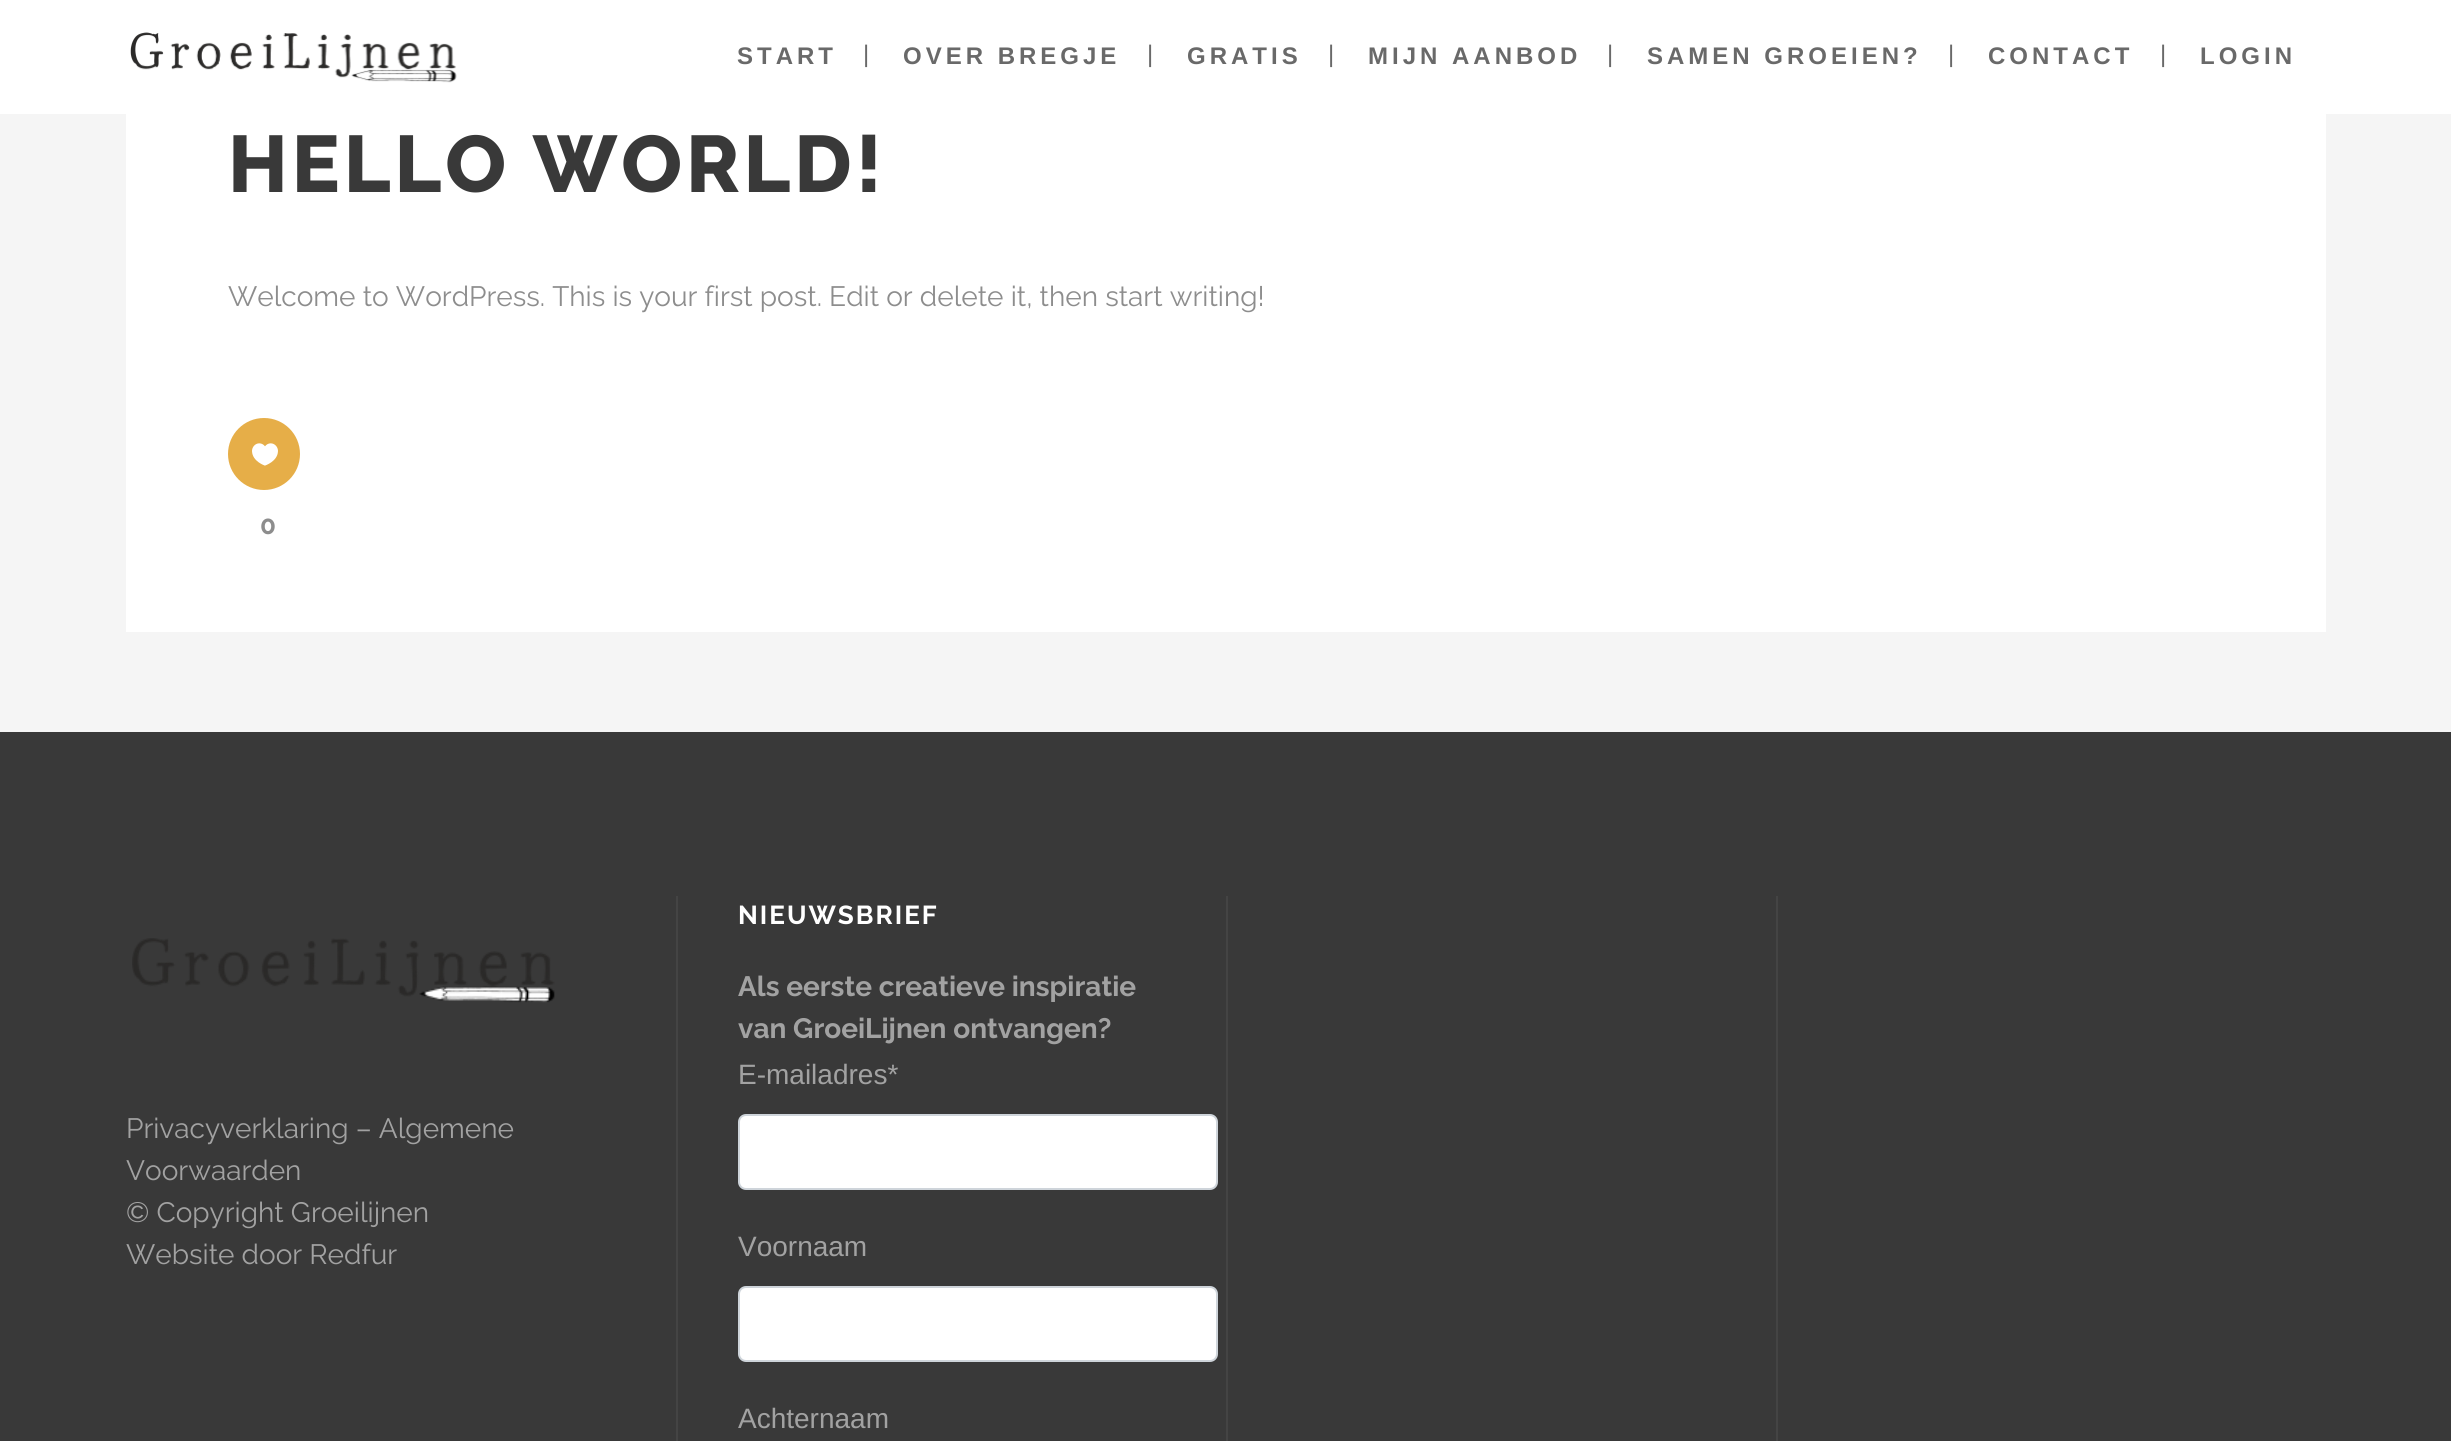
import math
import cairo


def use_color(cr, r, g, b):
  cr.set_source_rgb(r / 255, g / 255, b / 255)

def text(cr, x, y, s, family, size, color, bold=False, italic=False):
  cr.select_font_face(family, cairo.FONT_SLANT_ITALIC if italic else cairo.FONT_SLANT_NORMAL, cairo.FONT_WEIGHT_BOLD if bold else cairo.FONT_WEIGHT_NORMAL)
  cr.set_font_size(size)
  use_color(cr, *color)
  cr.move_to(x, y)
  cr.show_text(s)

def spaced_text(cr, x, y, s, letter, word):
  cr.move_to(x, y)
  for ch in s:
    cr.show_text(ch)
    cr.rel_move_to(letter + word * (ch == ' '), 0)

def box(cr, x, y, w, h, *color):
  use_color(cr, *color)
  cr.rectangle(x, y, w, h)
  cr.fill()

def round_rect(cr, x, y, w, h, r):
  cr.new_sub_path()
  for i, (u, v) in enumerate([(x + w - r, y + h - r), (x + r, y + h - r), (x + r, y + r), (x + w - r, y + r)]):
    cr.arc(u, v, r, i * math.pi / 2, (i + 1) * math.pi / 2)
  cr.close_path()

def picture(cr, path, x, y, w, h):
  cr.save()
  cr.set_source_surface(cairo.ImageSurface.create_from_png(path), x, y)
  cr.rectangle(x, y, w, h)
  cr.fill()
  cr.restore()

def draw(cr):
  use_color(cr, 245, 245, 245)
  cr.paint()
  box(cr, 0, 0, 2451, 114, 255, 255, 255)
  picture(cr, "img_01.png", 130, 32, 327, 51)
  box(cr, 126, 114, 2200, 518, 255, 255, 255)
  use_color(cr, 230, 174, 72)
  cr.arc(264, 454, 36, 0, 2 * math.pi)
  cr.fill()
  picture(cr, "img_02.png", 252, 443, 26, 23)
  box(cr, 0, 732, 2451, 709, 57, 57, 57)
  picture(cr, "img_03.png", 132, 938, 423, 65)
  box(cr, 676, 896, 2, 545, 68, 68, 68)
  use_color(cr, 255, 255, 255)
  round_rect(cr, 739, 1115, 478, 74, 7)
  cr.fill_preserve()
  use_color(cr, 206, 212, 218)
  cr.stroke()
  use_color(cr, 255, 255, 255)
  round_rect(cr, 739, 1287, 478, 74, 7)
  cr.fill_preserve()
  use_color(cr, 206, 212, 218)
  cr.stroke()
  box(cr, 1226, 896, 2, 545, 68, 68, 68)
  box(cr, 1776, 896, 2, 545, 68, 68, 68)
  cr.select_font_face("Liberation Sans", cairo.FONT_SLANT_NORMAL, cairo.FONT_WEIGHT_BOLD)
  cr.set_font_size(24)
  use_color(cr, 105, 105, 105)
  spaced_text(cr, 737, 64, "START", 4, 0)
  text(cr, 863, 62, "|", "Liberation Sans", 24, (105, 105, 105))
  cr.select_font_face("Liberation Sans", cairo.FONT_SLANT_NORMAL, cairo.FONT_WEIGHT_BOLD)
  spaced_text(cr, 903, 64, "OVER BREGJE", 4, 0)
  text(cr, 1147, 62, "|", "Liberation Sans", 24, (105, 105, 105))
  cr.select_font_face("Liberation Sans", cairo.FONT_SLANT_NORMAL, cairo.FONT_WEIGHT_BOLD)
  spaced_text(cr, 1187, 64, "GRATIS", 4, 0)
  text(cr, 1328, 62, "|", "Liberation Sans", 24, (105, 105, 105))
  cr.select_font_face("Liberation Sans", cairo.FONT_SLANT_NORMAL, cairo.FONT_WEIGHT_BOLD)
  spaced_text(cr, 1368, 64, "MIJN AANBOD", 4, 0)
  text(cr, 1607, 62, "|", "Liberation Sans", 24, (105, 105, 105))
  cr.select_font_face("Liberation Sans", cairo.FONT_SLANT_NORMAL, cairo.FONT_WEIGHT_BOLD)
  spaced_text(cr, 1647, 64, "SAMEN GROEIEN?", 4, 0)
  text(cr, 1948, 62, "|", "Liberation Sans", 24, (105, 105, 105))
  cr.select_font_face("Liberation Sans", cairo.FONT_SLANT_NORMAL, cairo.FONT_WEIGHT_BOLD)
  spaced_text(cr, 1988, 64, "CONTACT", 4, 0)
  text(cr, 2160, 62, "|", "Liberation Sans", 24, (105, 105, 105))
  cr.select_font_face("Liberation Sans", cairo.FONT_SLANT_NORMAL, cairo.FONT_WEIGHT_BOLD)
  spaced_text(cr, 2200, 64, "LOGIN", 4, 0)
  cr.select_font_face("Raleway ExtraBold")
  cr.set_font_size(80)
  use_color(cr, 57, 57, 57)
  spaced_text(cr, 228, 192, "HELLO WORLD!", 4, 0)
  text(cr, 228, 306, "Welcome to WordPress. This is your first post. Edit or delete it, then start writing!", "Raleway", 28, (141, 141, 141))
  text(cr, 260, 534, "0", "Raleway", 26, (141, 141, 141), bold=True)
  text(cr, 126, 1138, "Privacyverklaring – Algemene", "Raleway", 28, (162, 162, 162))
  text(cr, 126, 1180, "Voorwaarden", "Raleway", 28, (162, 162, 162))
  text(cr, 126, 1222, "© Copyright Groeilijnen", "Raleway", 28, (162, 162, 162))
  text(cr, 126, 1264, "Website door Redfur", "Raleway", 28, (162, 162, 162))
  cr.select_font_face("Raleway", cairo.FONT_SLANT_NORMAL, cairo.FONT_WEIGHT_BOLD)
  cr.set_font_size(26)
  use_color(cr, 255, 255, 255)
  spaced_text(cr, 738, 924, "NIEUWSBRIEF", 2, 0)
  text(cr, 738, 996, "Als eerste creatieve inspiratie", "Raleway", 28, (162, 162, 162), bold=True)
  text(cr, 738, 1038, "van GroeiLijnen ontvangen?", "Raleway", 28, (162, 162, 162), bold=True)
  text(cr, 738, 1084, "E-mailadres*", "Liberation Sans", 28, (162, 162, 162))
  text(cr, 738, 1256, "Voornaam", "Liberation Sans", 28, (162, 162, 162))
  text(cr, 738, 1428, "Achternaam", "Liberation Sans", 28, (162, 162, 162))


surface = cairo.ImageSurface(cairo.FORMAT_RGB24, 2451, 1441)
cr = cairo.Context(surface)
options = cairo.FontOptions()
options.set_hint_metrics(cairo.HINT_METRICS_OFF)
options.set_hint_style(cairo.HINT_STYLE_NONE)
cr.set_font_options(options)
cr.set_miter_limit(4)
draw(cr)
surface.write_to_png("out.png")
